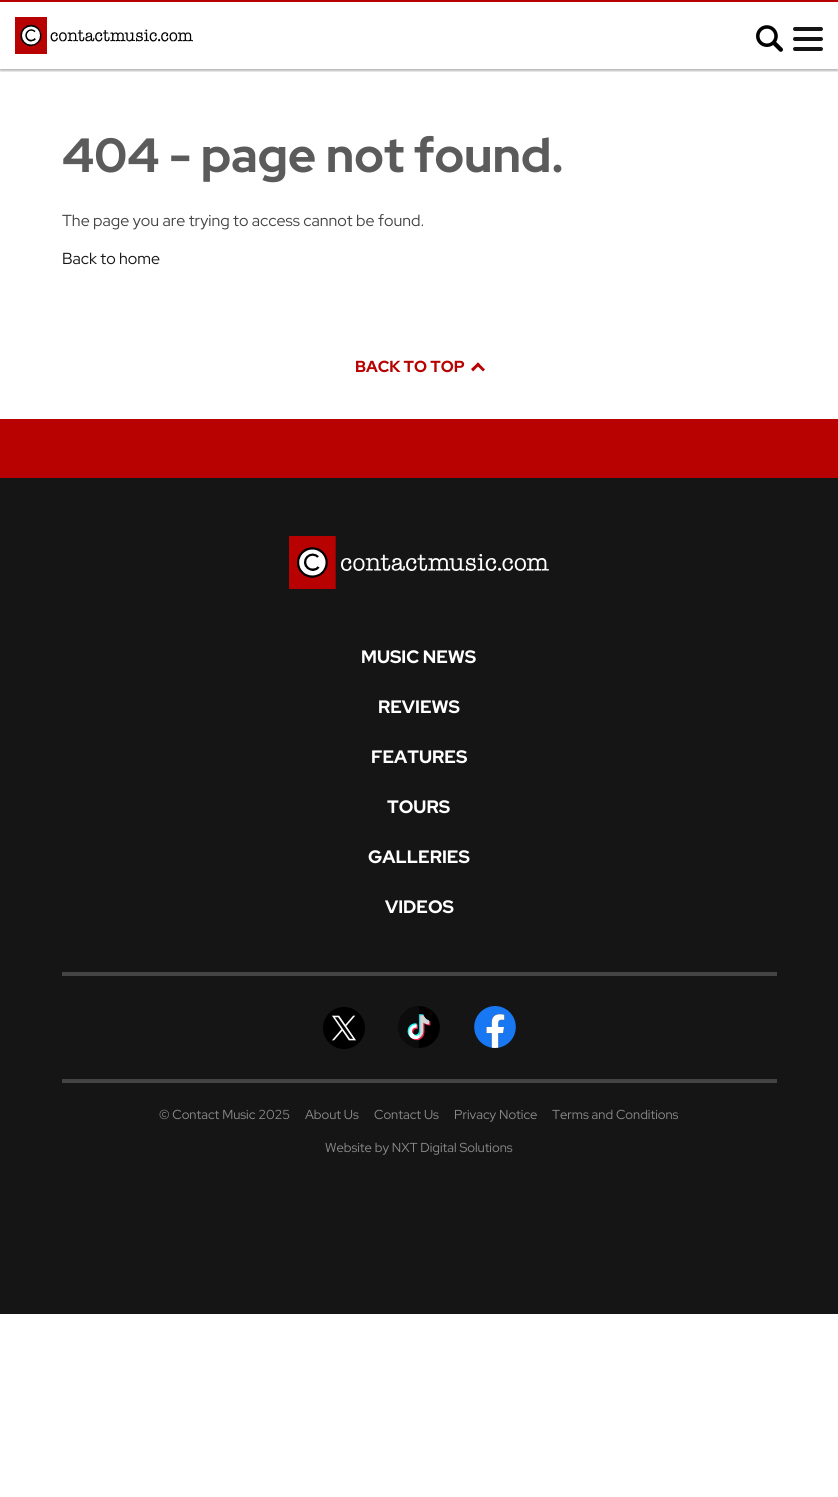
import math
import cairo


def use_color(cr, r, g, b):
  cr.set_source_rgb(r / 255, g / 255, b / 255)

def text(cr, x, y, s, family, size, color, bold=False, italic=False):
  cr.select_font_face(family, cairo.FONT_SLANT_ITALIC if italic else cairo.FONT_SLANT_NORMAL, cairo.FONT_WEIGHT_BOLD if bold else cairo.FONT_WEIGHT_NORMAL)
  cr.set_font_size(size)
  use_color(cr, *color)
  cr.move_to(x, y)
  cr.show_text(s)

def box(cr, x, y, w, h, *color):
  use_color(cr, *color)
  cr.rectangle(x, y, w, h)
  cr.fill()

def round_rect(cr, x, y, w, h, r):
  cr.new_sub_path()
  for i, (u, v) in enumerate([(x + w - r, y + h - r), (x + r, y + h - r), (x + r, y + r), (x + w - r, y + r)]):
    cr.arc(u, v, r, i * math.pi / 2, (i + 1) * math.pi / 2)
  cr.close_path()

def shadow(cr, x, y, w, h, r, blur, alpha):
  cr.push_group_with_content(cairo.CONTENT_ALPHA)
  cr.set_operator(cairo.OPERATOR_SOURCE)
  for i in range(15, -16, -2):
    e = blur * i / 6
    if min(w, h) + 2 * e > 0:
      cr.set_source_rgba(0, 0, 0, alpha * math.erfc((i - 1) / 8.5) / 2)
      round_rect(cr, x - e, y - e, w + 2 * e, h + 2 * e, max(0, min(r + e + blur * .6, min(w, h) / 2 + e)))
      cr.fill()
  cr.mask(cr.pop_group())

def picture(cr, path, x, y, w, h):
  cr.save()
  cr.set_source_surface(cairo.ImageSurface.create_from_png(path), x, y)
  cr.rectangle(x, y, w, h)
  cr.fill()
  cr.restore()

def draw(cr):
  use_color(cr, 255, 255, 255)
  cr.paint()
  cr.save()
  cr.rectangle(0, 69, 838, 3)
  cr.clip()
  use_color(cr, 21, 21, 21)
  shadow(cr, 0, 2, 838, 69, 0, 1, 0.3)
  cr.restore()
  box(cr, 0, 0, 838, 2, 184, 2, 1)
  picture(cr, "img_01.png", 15, 17, 178, 37)
  picture(cr, "img_02.png", 756, 25, 27, 27)
  use_color(cr, 21, 21, 21)
  round_rect(cr, 793, 47, 30, 4, 2)
  cr.fill()
  round_rect(cr, 793, 27, 30, 4, 2)
  cr.fill()
  round_rect(cr, 793, 37, 30, 4, 2)
  cr.fill()
  use_color(cr, 184, 2, 1)
  cr.new_path()
  cr.move_to(473, 371.5)
  cr.line_to(471, 369)
  cr.line_to(478, 362.5)
  cr.line_to(480, 364.5)
  cr.close_path()
  cr.fill()
  cr.new_path()
  cr.move_to(483, 371.5)
  cr.line_to(476, 364.5)
  cr.line_to(478, 362.5)
  cr.line_to(485, 369.5)
  cr.close_path()
  cr.fill()
  box(cr, 0, 419, 838, 59, 184, 2, 1)
  box(cr, 0, 478, 838, 836, 21, 21, 21)
  picture(cr, "img_03.png", 289, 536, 260, 53)
  box(cr, 62, 972, 715, 4, 68, 68, 68)
  box(cr, 62, 1079, 715, 4, 68, 68, 68)
  picture(cr, "img_04.png", 323, 1007, 42, 42)
  picture(cr, "img_05.png", 398, 1006, 42, 42)
  picture(cr, "img_06.png", 474, 1006, 42, 42)
  text(cr, 62, 172, "404 - page not found.", "Red Hat Display ExtraBold", 48, (91, 91, 91))
  text(cr, 62, 226, "The page you are trying to access cannot be found.", "Red Hat Display", 16, (68, 68, 68))
  text(cr, 62, 264, "Back to home", "Red Hat Display", 16, (21, 21, 21))
  text(cr, 355, 372, "BACK TO TOP", "Red Hat Display ExtraBold", 16, (184, 2, 1))
  text(cr, 361, 663, "MUSIC NEWS", "Red Hat Display ExtraBold", 18, (255, 255, 255))
  text(cr, 378, 713, "REVIEWS", "Red Hat Display ExtraBold", 18, (255, 255, 255))
  text(cr, 371, 763, "FEATURES", "Red Hat Display ExtraBold", 18, (255, 255, 255))
  text(cr, 387, 813, "TOURS", "Red Hat Display ExtraBold", 18, (255, 255, 255))
  text(cr, 368, 863, "GALLERIES", "Red Hat Display ExtraBold", 18, (255, 255, 255))
  text(cr, 385, 913, "VIDEOS", "Red Hat Display ExtraBold", 18, (255, 255, 255))
  text(cr, 159, 1119, "© Contact Music 2025", "Red Hat Display", 13, (138, 138, 138))
  text(cr, 305, 1119, "About Us", "Red Hat Display", 13, (138, 138, 138))
  text(cr, 374, 1119, "Contact Us", "Red Hat Display", 13, (138, 138, 138))
  text(cr, 454, 1119, "Privacy Notice", "Red Hat Display", 13, (138, 138, 138))
  text(cr, 552, 1119, "Terms and Conditions", "Red Hat Display", 13, (138, 138, 138))
  text(cr, 325, 1152, "Website by NXT Digital Solutions", "Red Hat Display", 13, (138, 138, 138))


surface = cairo.ImageSurface(cairo.FORMAT_RGB24, 838, 1497)
cr = cairo.Context(surface)
options = cairo.FontOptions()
options.set_hint_metrics(cairo.HINT_METRICS_OFF)
options.set_hint_style(cairo.HINT_STYLE_NONE)
cr.set_font_options(options)
cr.set_miter_limit(4)
draw(cr)
surface.write_to_png("out.png")
